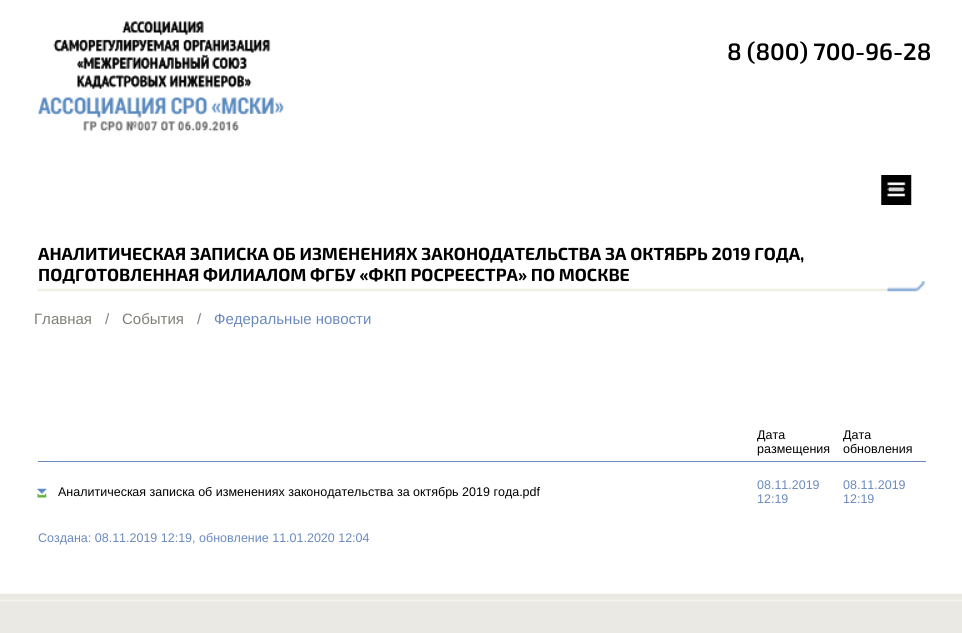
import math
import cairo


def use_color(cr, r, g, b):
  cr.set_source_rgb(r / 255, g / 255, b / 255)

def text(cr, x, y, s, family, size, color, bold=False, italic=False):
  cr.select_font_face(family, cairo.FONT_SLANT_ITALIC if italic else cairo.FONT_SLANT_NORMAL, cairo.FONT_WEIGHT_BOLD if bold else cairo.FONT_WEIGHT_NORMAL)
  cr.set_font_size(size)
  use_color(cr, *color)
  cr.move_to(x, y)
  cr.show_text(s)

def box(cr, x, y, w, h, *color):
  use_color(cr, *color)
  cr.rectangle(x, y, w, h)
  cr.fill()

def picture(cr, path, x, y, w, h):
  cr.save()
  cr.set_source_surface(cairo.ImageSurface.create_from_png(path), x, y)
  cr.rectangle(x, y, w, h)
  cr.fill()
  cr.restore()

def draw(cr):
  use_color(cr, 255, 255, 255)
  cr.paint()
  picture(cr, "img_01.png", 37, 21, 247, 111)
  picture(cr, "img_02.png", 881, 175, 31, 30)
  picture(cr, "img_03.png", 37, 281, 888, 11)
  box(cr, 38, 461, 888, 1, 106, 138, 189)
  picture(cr, "img_04.png", 37, 488, 10, 10)
  picture(cr, "img_05.png", 0, 593, 962, 40)
  text(cr, 727, 60, "8 (800) 700-96-28", "Exo 2 SemiBold", 23.75, (0, 0, 0))
  text(cr, 38, 260, "АНАЛИТИЧЕСКАЯ ЗАПИСКА ОБ ИЗМЕНЕНИЯХ ЗАКОНОДАТЕЛЬСТВА ЗА ОКТЯБРЬ 2019 ГОДА,", "Exo 2", 17.5, (0, 0, 0), bold=True)
  text(cr, 38, 281, "ПОДГОТОВЛЕННАЯ ФИЛИАЛОМ ФГБУ «ФКП РОСРЕЕСТРА» ПО МОСКВЕ", "Exo 2", 17.5, (0, 0, 0), bold=True)
  text(cr, 34, 324, "Главная", "Liberation Sans", 15, (128, 127, 119))
  text(cr, 105, 324, "/", "Liberation Sans", 15, (128, 127, 119))
  text(cr, 122, 324, "События", "Liberation Sans", 15, (128, 127, 119))
  text(cr, 197, 324, "/", "Liberation Sans", 15, (128, 127, 119))
  text(cr, 214, 324, "Федеральные новости", "Liberation Sans", 15, (106, 138, 189))
  text(cr, 757, 439, "Дата", "Liberation Sans", 12.5, (0, 0, 0))
  text(cr, 757, 453, "размещения", "Liberation Sans", 12.5, (0, 0, 0))
  text(cr, 843, 439, "Дата", "Liberation Sans", 12.5, (0, 0, 0))
  text(cr, 843, 453, "обновления", "Liberation Sans", 12.5, (0, 0, 0))
  text(cr, 58, 496, "Аналитическая записка об изменениях законодательства за октябрь 2019 года.pdf", "Liberation Sans", 12.5, (0, 0, 0))
  text(cr, 757, 489, "08.11.2019", "Liberation Sans", 12.5, (106, 138, 189))
  text(cr, 757, 503, "12:19", "Liberation Sans", 12.5, (106, 138, 189))
  text(cr, 843, 489, "08.11.2019", "Liberation Sans", 12.5, (106, 138, 189))
  text(cr, 843, 503, "12:19", "Liberation Sans", 12.5, (106, 138, 189))
  text(cr, 38, 542, "Создана: 08.11.2019 12:19, обновление 11.01.2020 12:04", "Liberation Sans", 12.5, (106, 138, 189))


surface = cairo.ImageSurface(cairo.FORMAT_RGB24, 962, 633)
cr = cairo.Context(surface)
options = cairo.FontOptions()
options.set_hint_metrics(cairo.HINT_METRICS_OFF)
options.set_hint_style(cairo.HINT_STYLE_NONE)
cr.set_font_options(options)
cr.set_miter_limit(4)
draw(cr)
surface.write_to_png("out.png")
